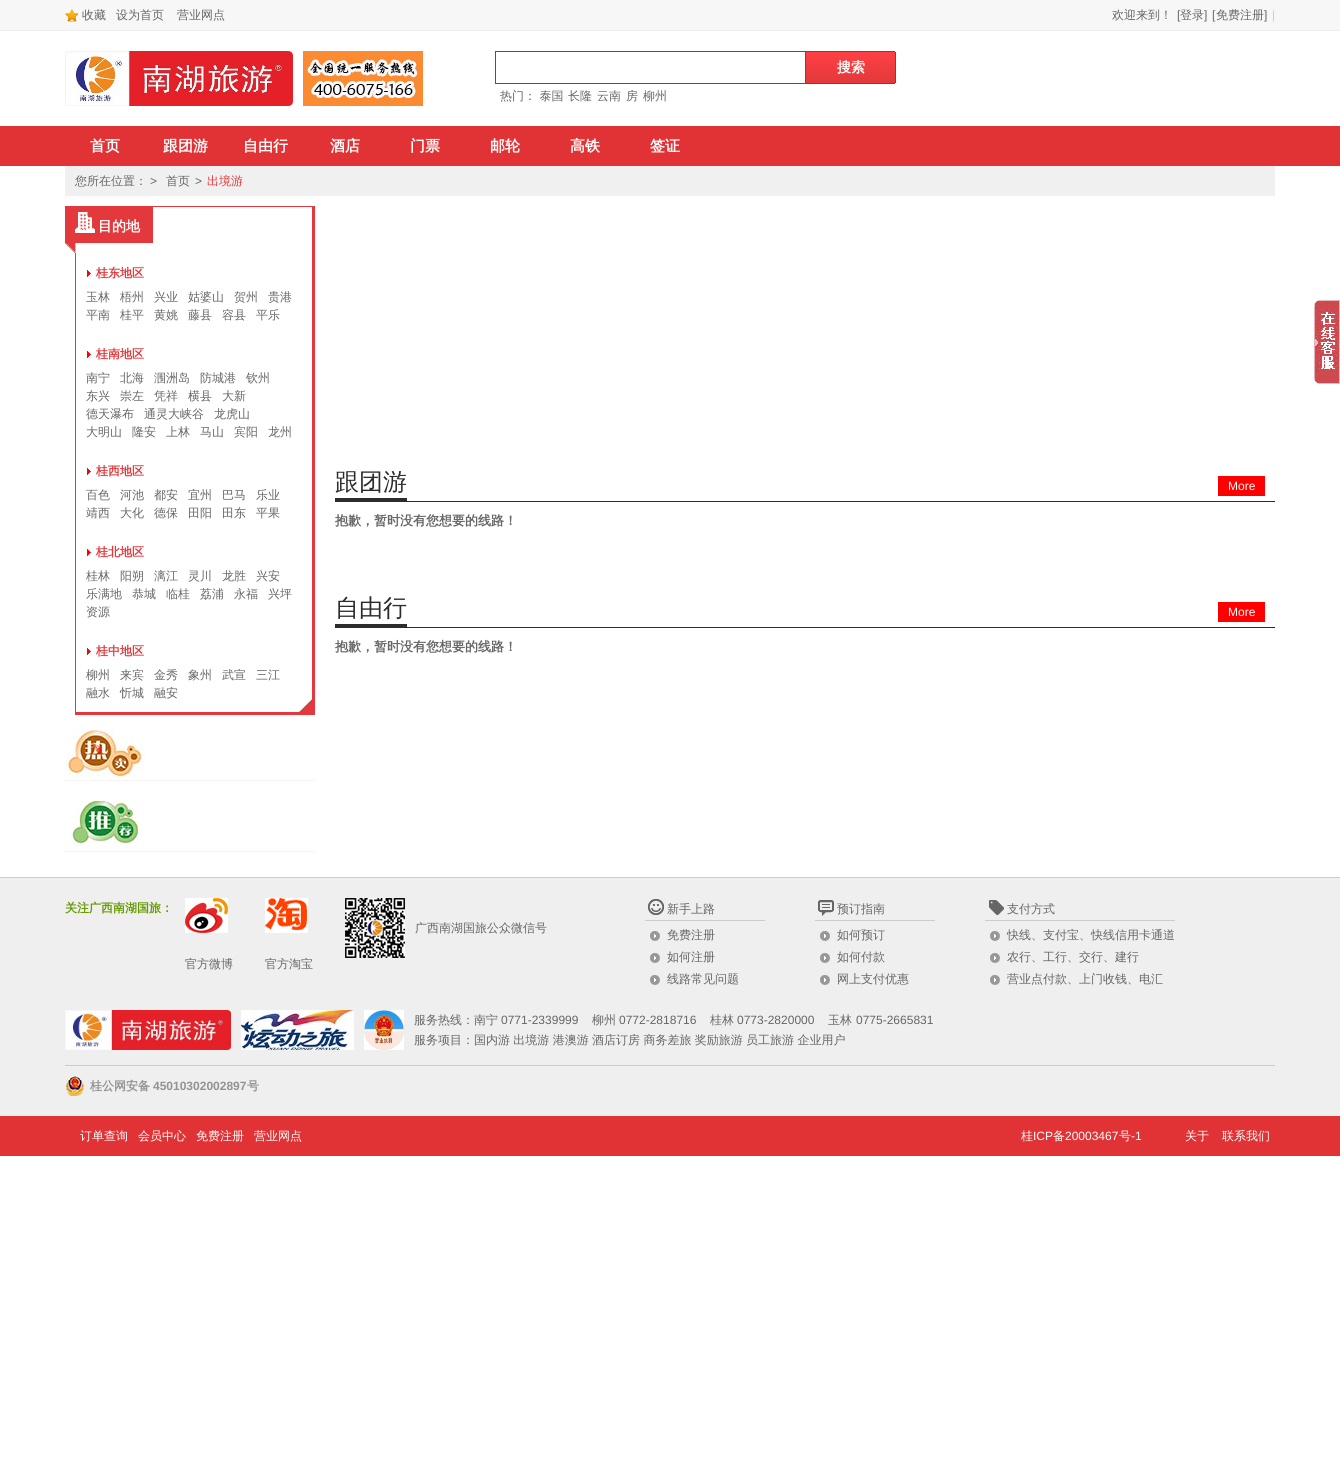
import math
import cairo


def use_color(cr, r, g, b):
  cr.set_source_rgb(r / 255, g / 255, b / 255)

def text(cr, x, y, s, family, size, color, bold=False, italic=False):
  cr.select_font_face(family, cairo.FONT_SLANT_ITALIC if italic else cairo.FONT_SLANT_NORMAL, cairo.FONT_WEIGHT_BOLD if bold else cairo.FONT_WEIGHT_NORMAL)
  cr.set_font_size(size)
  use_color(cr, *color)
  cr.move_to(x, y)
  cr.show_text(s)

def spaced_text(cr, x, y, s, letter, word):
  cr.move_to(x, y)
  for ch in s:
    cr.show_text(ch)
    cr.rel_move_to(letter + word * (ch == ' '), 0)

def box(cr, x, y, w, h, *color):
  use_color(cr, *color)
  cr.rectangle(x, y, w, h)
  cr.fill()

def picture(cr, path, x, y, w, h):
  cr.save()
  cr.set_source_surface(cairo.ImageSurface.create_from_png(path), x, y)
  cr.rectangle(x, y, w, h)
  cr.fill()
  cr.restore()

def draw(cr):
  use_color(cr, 255, 255, 255)
  cr.paint()
  box(cr, 0, 0, 1340, 30, 247, 247, 247)
  box(cr, 0, 30, 1340, 1, 238, 238, 238)
  picture(cr, "img_01.png", 65, 9, 13, 13)
  picture(cr, "img_02.png", 65, 51, 228, 55)
  picture(cr, "img_03.png", 303, 51, 120, 55)
  box(cr, 495, 51, 311, 1, 228, 21, 24)
  box(cr, 495, 83, 311, 1, 228, 21, 24)
  box(cr, 495, 51, 1, 33, 228, 21, 24)
  picture(cr, "img_04.png", 805, 51, 91, 33)
  box(cr, 0, 126, 1340, 40, 225, 51, 53)
  picture(cr, "img_05.png", 1314, 300, 26, 84)
  box(cr, 65, 166, 1210, 30, 240, 240, 240)
  picture(cr, "img_06.png", 65, 207, 88, 46)
  box(cr, 65, 206, 250, 1, 228, 57, 60)
  box(cr, 312, 206, 3, 47, 228, 57, 60)
  picture(cr, "img_07.png", 75, 212, 20, 21)
  box(cr, 75, 253, 240, 462, 228, 57, 60)
  box(cr, 76, 253, 236, 459, 255, 255, 255)
  picture(cr, "img_08.png", 87, 270, 4, 7)
  picture(cr, "img_08.png", 87, 351, 4, 7)
  picture(cr, "img_08.png", 87, 468, 4, 7)
  picture(cr, "img_08.png", 87, 549, 4, 7)
  picture(cr, "img_08.png", 87, 648, 4, 7)
  picture(cr, "img_09.png", 299, 699, 13, 14)
  picture(cr, "img_10.png", 65, 730, 80, 48)
  cr.new_path()
  cr.move_to(65, 780.5)
  cr.line_to(315, 780.5)
  use_color(cr, 235, 235, 235)
  cr.set_line_width(1)
  cr.set_dash([1, 1])
  cr.stroke()
  picture(cr, "img_11.png", 71, 801, 67, 47)
  cr.new_path()
  cr.move_to(65, 851.5)
  cr.line_to(315, 851.5)
  cr.stroke()
  box(cr, 335, 501, 940, 1, 44, 44, 44)
  box(cr, 335, 498, 72, 3, 44, 44, 44)
  box(cr, 1218, 476, 47, 20, 255, 0, 0)
  box(cr, 335, 627, 940, 1, 44, 44, 44)
  box(cr, 335, 624, 72, 3, 44, 44, 44)
  box(cr, 1218, 602, 47, 20, 255, 0, 0)
  box(cr, 0, 878, 1340, 238, 239, 239, 239)
  box(cr, 0, 877, 1340, 1, 204, 204, 204)
  picture(cr, "img_12.png", 345, 898, 60, 60)
  picture(cr, "img_13.png", 185, 898, 43, 35)
  picture(cr, "img_14.png", 265, 898, 43, 35)
  picture(cr, "img_15.png", 648, 899, 16, 16)
  box(cr, 645, 920, 120, 1, 204, 204, 204)
  picture(cr, "img_16.png", 650, 931, 10, 10)
  picture(cr, "img_16.png", 650, 953, 10, 10)
  picture(cr, "img_16.png", 650, 975, 10, 10)
  picture(cr, "img_17.png", 818, 900, 16, 16)
  box(cr, 815, 920, 120, 1, 204, 204, 204)
  picture(cr, "img_16.png", 820, 931, 10, 10)
  picture(cr, "img_16.png", 820, 953, 10, 10)
  picture(cr, "img_16.png", 820, 975, 10, 10)
  picture(cr, "img_18.png", 989, 900, 15, 15)
  box(cr, 985, 920, 190, 1, 204, 204, 204)
  picture(cr, "img_16.png", 990, 931, 10, 10)
  picture(cr, "img_16.png", 990, 953, 10, 10)
  picture(cr, "img_16.png", 990, 975, 10, 10)
  picture(cr, "img_19.png", 65, 1010, 166, 40)
  picture(cr, "img_20.png", 241, 1010, 113, 40)
  picture(cr, "img_21.png", 364, 1010, 40, 40)
  box(cr, 65, 1065, 1210, 1, 204, 204, 204)
  picture(cr, "img_22.png", 66, 1076, 18, 20)
  box(cr, 0, 1116, 1340, 40, 225, 51, 53)
  text(cr, 82, 19, "收藏", "WenQuanYi Zen Hei Medium", 12, (102, 102, 102))
  text(cr, 116, 19, "设为首页", "WenQuanYi Zen Hei Medium", 12, (102, 102, 102))
  text(cr, 177, 19, "营业网点", "WenQuanYi Zen Hei Medium", 12, (102, 102, 102))
  text(cr, 1112, 19, "欢迎来到！", "WenQuanYi Zen Hei Medium", 12, (102, 102, 102))
  text(cr, 1177, 19, "[", "Liberation Sans", 12, (102, 102, 102))
  text(cr, 1180, 19, "登录", "WenQuanYi Zen Hei Medium", 12, (102, 102, 102))
  text(cr, 1204, 19, "]", "Liberation Sans", 12, (102, 102, 102))
  text(cr, 1212, 19, "[", "Liberation Sans", 12, (102, 102, 102))
  text(cr, 1216, 19, "免费注册", "WenQuanYi Zen Hei Medium", 12, (102, 102, 102))
  text(cr, 1264, 19, "]", "Liberation Sans", 12, (102, 102, 102))
  text(cr, 1272, 19, "|", "Liberation Sans", 12, (204, 204, 204))
  text(cr, 837, 72, "搜索", "WenQuanYi Zen Hei", 14, (255, 255, 255), bold=True)
  text(cr, 500, 100, "热门： 泰国", "WenQuanYi Zen Hei Medium", 12, (102, 102, 102))
  text(cr, 568, 100, "长隆", "WenQuanYi Zen Hei Medium", 12, (102, 102, 102))
  text(cr, 597, 100, "云南", "WenQuanYi Zen Hei Medium", 12, (102, 102, 102))
  text(cr, 626, 100, "房", "WenQuanYi Zen Hei Medium", 12, (102, 102, 102))
  text(cr, 643, 100, "柳州", "WenQuanYi Zen Hei Medium", 12, (102, 102, 102))
  text(cr, 90, 151, "首页", "WenQuanYi Zen Hei", 15, (255, 255, 255), bold=True)
  text(cr, 163, 151, "跟团游", "WenQuanYi Zen Hei", 15, (255, 255, 255), bold=True)
  text(cr, 243, 151, "自由行", "WenQuanYi Zen Hei", 15, (255, 255, 255), bold=True)
  text(cr, 330, 151, "酒店", "WenQuanYi Zen Hei", 15, (255, 255, 255), bold=True)
  text(cr, 410, 151, "门票", "WenQuanYi Zen Hei", 15, (255, 255, 255), bold=True)
  text(cr, 490, 151, "邮轮", "WenQuanYi Zen Hei", 15, (255, 255, 255), bold=True)
  text(cr, 570, 151, "高铁", "WenQuanYi Zen Hei", 15, (255, 255, 255), bold=True)
  text(cr, 650, 151, "签证", "WenQuanYi Zen Hei", 15, (255, 255, 255), bold=True)
  text(cr, 75, 185, "您所在位置：", "WenQuanYi Zen Hei Medium", 12, (102, 102, 102))
  text(cr, 150, 185, ">", "Liberation Sans", 12, (102, 102, 102))
  text(cr, 166, 185, "首页", "WenQuanYi Zen Hei Medium", 12, (102, 102, 102))
  text(cr, 195, 185, ">", "Liberation Sans", 12, (102, 102, 102))
  text(cr, 207, 185, "出境游", "WenQuanYi Zen Hei Medium", 12, (228, 57, 60))
  text(cr, 98, 231, "目的地", "WenQuanYi Zen Hei", 14, (255, 255, 255), bold=True)
  text(cr, 96, 277, "桂东地区", "WenQuanYi Zen Hei", 12, (228, 57, 60), bold=True)
  text(cr, 86, 301, "玉林", "WenQuanYi Zen Hei Medium", 12, (102, 102, 102))
  text(cr, 120, 301, "梧州", "WenQuanYi Zen Hei Medium", 12, (102, 102, 102))
  text(cr, 154, 301, "兴业", "WenQuanYi Zen Hei Medium", 12, (102, 102, 102))
  text(cr, 188, 301, "姑婆山", "WenQuanYi Zen Hei Medium", 12, (102, 102, 102))
  text(cr, 234, 301, "贺州", "WenQuanYi Zen Hei Medium", 12, (102, 102, 102))
  text(cr, 268, 301, "贵港", "WenQuanYi Zen Hei Medium", 12, (102, 102, 102))
  text(cr, 86, 319, "平南", "WenQuanYi Zen Hei Medium", 12, (102, 102, 102))
  text(cr, 120, 319, "桂平", "WenQuanYi Zen Hei Medium", 12, (102, 102, 102))
  text(cr, 154, 319, "黄姚", "WenQuanYi Zen Hei Medium", 12, (102, 102, 102))
  text(cr, 188, 319, "藤县", "WenQuanYi Zen Hei Medium", 12, (102, 102, 102))
  text(cr, 222, 319, "容县", "WenQuanYi Zen Hei Medium", 12, (102, 102, 102))
  text(cr, 256, 319, "平乐", "WenQuanYi Zen Hei Medium", 12, (102, 102, 102))
  text(cr, 96, 358, "桂南地区", "WenQuanYi Zen Hei", 12, (228, 57, 60), bold=True)
  text(cr, 86, 382, "南宁", "WenQuanYi Zen Hei Medium", 12, (102, 102, 102))
  text(cr, 120, 382, "北海", "WenQuanYi Zen Hei Medium", 12, (102, 102, 102))
  text(cr, 154, 382, "涠洲岛", "WenQuanYi Zen Hei Medium", 12, (102, 102, 102))
  text(cr, 200, 382, "防城港", "WenQuanYi Zen Hei Medium", 12, (102, 102, 102))
  text(cr, 246, 382, "钦州", "WenQuanYi Zen Hei Medium", 12, (102, 102, 102))
  text(cr, 86, 400, "东兴", "WenQuanYi Zen Hei Medium", 12, (102, 102, 102))
  text(cr, 120, 400, "崇左", "WenQuanYi Zen Hei Medium", 12, (102, 102, 102))
  text(cr, 154, 400, "凭祥", "WenQuanYi Zen Hei Medium", 12, (102, 102, 102))
  text(cr, 188, 400, "横县", "WenQuanYi Zen Hei Medium", 12, (102, 102, 102))
  text(cr, 222, 400, "大新", "WenQuanYi Zen Hei Medium", 12, (102, 102, 102))
  text(cr, 86, 418, "德天瀑布", "WenQuanYi Zen Hei Medium", 12, (102, 102, 102))
  text(cr, 144, 418, "通灵大峡谷", "WenQuanYi Zen Hei Medium", 12, (102, 102, 102))
  text(cr, 214, 418, "龙虎山", "WenQuanYi Zen Hei Medium", 12, (102, 102, 102))
  text(cr, 86, 436, "大明山", "WenQuanYi Zen Hei Medium", 12, (102, 102, 102))
  text(cr, 132, 436, "隆安", "WenQuanYi Zen Hei Medium", 12, (102, 102, 102))
  text(cr, 166, 436, "上林", "WenQuanYi Zen Hei Medium", 12, (102, 102, 102))
  text(cr, 200, 436, "马山", "WenQuanYi Zen Hei Medium", 12, (102, 102, 102))
  text(cr, 234, 436, "宾阳", "WenQuanYi Zen Hei Medium", 12, (102, 102, 102))
  text(cr, 268, 436, "龙州", "WenQuanYi Zen Hei Medium", 12, (102, 102, 102))
  text(cr, 96, 475, "桂西地区", "WenQuanYi Zen Hei", 12, (228, 57, 60), bold=True)
  text(cr, 86, 499, "百色", "WenQuanYi Zen Hei Medium", 12, (102, 102, 102))
  text(cr, 120, 499, "河池", "WenQuanYi Zen Hei Medium", 12, (102, 102, 102))
  text(cr, 154, 499, "都安", "WenQuanYi Zen Hei Medium", 12, (102, 102, 102))
  text(cr, 188, 499, "宜州", "WenQuanYi Zen Hei Medium", 12, (102, 102, 102))
  text(cr, 222, 499, "巴马", "WenQuanYi Zen Hei Medium", 12, (102, 102, 102))
  text(cr, 256, 499, "乐业", "WenQuanYi Zen Hei Medium", 12, (102, 102, 102))
  text(cr, 86, 517, "靖西", "WenQuanYi Zen Hei Medium", 12, (102, 102, 102))
  text(cr, 120, 517, "大化", "WenQuanYi Zen Hei Medium", 12, (102, 102, 102))
  text(cr, 154, 517, "德保", "WenQuanYi Zen Hei Medium", 12, (102, 102, 102))
  text(cr, 188, 517, "田阳", "WenQuanYi Zen Hei Medium", 12, (102, 102, 102))
  text(cr, 222, 517, "田东", "WenQuanYi Zen Hei Medium", 12, (102, 102, 102))
  text(cr, 256, 517, "平果", "WenQuanYi Zen Hei Medium", 12, (102, 102, 102))
  text(cr, 96, 556, "桂北地区", "WenQuanYi Zen Hei", 12, (228, 57, 60), bold=True)
  text(cr, 86, 580, "桂林", "WenQuanYi Zen Hei Medium", 12, (102, 102, 102))
  text(cr, 120, 580, "阳朔", "WenQuanYi Zen Hei Medium", 12, (102, 102, 102))
  text(cr, 154, 580, "漓江", "WenQuanYi Zen Hei Medium", 12, (102, 102, 102))
  text(cr, 188, 580, "灵川", "WenQuanYi Zen Hei Medium", 12, (102, 102, 102))
  text(cr, 222, 580, "龙胜", "WenQuanYi Zen Hei Medium", 12, (102, 102, 102))
  text(cr, 256, 580, "兴安", "WenQuanYi Zen Hei Medium", 12, (102, 102, 102))
  text(cr, 86, 598, "乐满地", "WenQuanYi Zen Hei Medium", 12, (102, 102, 102))
  text(cr, 132, 598, "恭城", "WenQuanYi Zen Hei Medium", 12, (102, 102, 102))
  text(cr, 166, 598, "临桂", "WenQuanYi Zen Hei Medium", 12, (102, 102, 102))
  text(cr, 200, 598, "荔浦", "WenQuanYi Zen Hei Medium", 12, (102, 102, 102))
  text(cr, 234, 598, "永福", "WenQuanYi Zen Hei Medium", 12, (102, 102, 102))
  text(cr, 268, 598, "兴坪", "WenQuanYi Zen Hei Medium", 12, (102, 102, 102))
  text(cr, 86, 616, "资源", "WenQuanYi Zen Hei Medium", 12, (102, 102, 102))
  text(cr, 96, 655, "桂中地区", "WenQuanYi Zen Hei", 12, (228, 57, 60), bold=True)
  text(cr, 86, 679, "柳州", "WenQuanYi Zen Hei Medium", 12, (102, 102, 102))
  text(cr, 120, 679, "来宾", "WenQuanYi Zen Hei Medium", 12, (102, 102, 102))
  text(cr, 154, 679, "金秀", "WenQuanYi Zen Hei Medium", 12, (102, 102, 102))
  text(cr, 188, 679, "象州", "WenQuanYi Zen Hei Medium", 12, (102, 102, 102))
  text(cr, 222, 679, "武宣", "WenQuanYi Zen Hei Medium", 12, (102, 102, 102))
  text(cr, 256, 679, "三江", "WenQuanYi Zen Hei Medium", 12, (102, 102, 102))
  text(cr, 86, 697, "融水", "WenQuanYi Zen Hei Medium", 12, (102, 102, 102))
  text(cr, 120, 697, "忻城", "WenQuanYi Zen Hei Medium", 12, (102, 102, 102))
  text(cr, 154, 697, "融安", "WenQuanYi Zen Hei Medium", 12, (102, 102, 102))
  text(cr, 335, 490, "跟团游", "WenQuanYi Zen Hei Medium", 24, (44, 44, 44))
  text(cr, 1228, 490, "More", "Liberation Sans", 12, (255, 255, 255))
  text(cr, 335, 525, "抱歉，暂时没有您想要的线路！", "WenQuanYi Zen Hei", 13, (102, 102, 102), bold=True)
  text(cr, 335, 616, "自由行", "WenQuanYi Zen Hei Medium", 24, (44, 44, 44))
  text(cr, 1228, 616, "More", "Liberation Sans", 12, (255, 255, 255))
  text(cr, 335, 651, "抱歉，暂时没有您想要的线路！", "WenQuanYi Zen Hei", 13, (102, 102, 102), bold=True)
  text(cr, 65, 912, "关注广西南湖国旅：", "WenQuanYi Zen Hei", 12, (102, 153, 0), bold=True)
  text(cr, 415, 932, "广西南湖国旅公众微信号", "WenQuanYi Zen Hei Medium", 12, (102, 102, 102))
  text(cr, 185, 968, "官方微博", "WenQuanYi Zen Hei Medium", 12, (102, 102, 102))
  text(cr, 265, 968, "官方淘宝", "WenQuanYi Zen Hei Medium", 12, (102, 102, 102))
  text(cr, 667, 913, "新手上路", "WenQuanYi Zen Hei Medium", 12, (102, 102, 102))
  text(cr, 667, 939, "免费注册", "WenQuanYi Zen Hei Medium", 12, (102, 102, 102))
  text(cr, 667, 961, "如何注册", "WenQuanYi Zen Hei Medium", 12, (102, 102, 102))
  text(cr, 667, 983, "线路常见问题", "WenQuanYi Zen Hei Medium", 12, (102, 102, 102))
  text(cr, 837, 913, "预订指南", "WenQuanYi Zen Hei Medium", 12, (102, 102, 102))
  text(cr, 837, 939, "如何预订", "WenQuanYi Zen Hei Medium", 12, (102, 102, 102))
  text(cr, 837, 961, "如何付款", "WenQuanYi Zen Hei Medium", 12, (102, 102, 102))
  text(cr, 837, 983, "网上支付优惠", "WenQuanYi Zen Hei Medium", 12, (102, 102, 102))
  text(cr, 1007, 913, "支付方式", "WenQuanYi Zen Hei Medium", 12, (102, 102, 102))
  text(cr, 1007, 939, "快线、支付宝、快线信用卡通道", "WenQuanYi Zen Hei Medium", 12, (102, 102, 102))
  text(cr, 1007, 961, "农行、工行、交行、建行", "WenQuanYi Zen Hei Medium", 12, (102, 102, 102))
  text(cr, 1007, 983, "营业点付款、上门收钱、电汇", "WenQuanYi Zen Hei Medium", 12, (102, 102, 102))
  text(cr, 414, 1024, "服务热线：南宁", "WenQuanYi Zen Hei Medium", 12, (102, 102, 102))
  text(cr, 501, 1024, "0771-2339999", "Liberation Sans", 12, (102, 102, 102))
  text(cr, 592, 1024, "柳州", "WenQuanYi Zen Hei Medium", 12, (102, 102, 102))
  text(cr, 619, 1024, "0772-2818716", "Liberation Sans", 12, (102, 102, 102))
  text(cr, 710, 1024, "桂林", "WenQuanYi Zen Hei Medium", 12, (102, 102, 102))
  text(cr, 737, 1024, "0773-2820000", "Liberation Sans", 12, (102, 102, 102))
  text(cr, 828, 1024, "玉林", "WenQuanYi Zen Hei Medium", 12, (102, 102, 102))
  text(cr, 856, 1024, "0775-2665831", "Liberation Sans", 12, (102, 102, 102))
  cr.select_font_face("WenQuanYi Zen Hei Medium")
  spaced_text(cr, 414, 1044, "服务项目：国内游 出境游 港澳游 酒店订房 商务差旅 奖励旅游 员工旅游 企业用户", 0, -0.25)
  text(cr, 90, 1090, "桂公网安备", "WenQuanYi Zen Hei", 12, (147, 147, 147), bold=True)
  text(cr, 153, 1090, "45010302002897", "Liberation Sans", 12, (147, 147, 147), bold=True)
  text(cr, 247, 1090, "号", "WenQuanYi Zen Hei", 12, (147, 147, 147), bold=True)
  text(cr, 80, 1140, "订单查询", "WenQuanYi Zen Hei Medium", 12, (255, 255, 255))
  text(cr, 138, 1140, "会员中心", "WenQuanYi Zen Hei Medium", 12, (255, 255, 255))
  text(cr, 196, 1140, "免费注册", "WenQuanYi Zen Hei Medium", 12, (255, 255, 255))
  text(cr, 254, 1140, "营业网点", "WenQuanYi Zen Hei Medium", 12, (255, 255, 255))
  text(cr, 1021, 1140, "桂", "WenQuanYi Zen Hei Medium", 12, (255, 255, 255))
  text(cr, 1033, 1140, "ICP", "Liberation Sans", 12, (255, 255, 255))
  text(cr, 1053, 1140, "备", "WenQuanYi Zen Hei Medium", 12, (255, 255, 255))
  text(cr, 1065, 1140, "20003467", "Liberation Sans", 12, (255, 255, 255))
  text(cr, 1119, 1140, "号", "WenQuanYi Zen Hei Medium", 12, (255, 255, 255))
  text(cr, 1131, 1140, "-1", "Liberation Sans", 12, (255, 255, 255))
  text(cr, 1185, 1140, "关于", "WenQuanYi Zen Hei Medium", 12, (255, 255, 255))
  text(cr, 1222, 1140, "联系我们", "WenQuanYi Zen Hei Medium", 12, (255, 255, 255))


surface = cairo.ImageSurface(cairo.FORMAT_RGB24, 1340, 1476)
cr = cairo.Context(surface)
options = cairo.FontOptions()
options.set_hint_metrics(cairo.HINT_METRICS_OFF)
options.set_hint_style(cairo.HINT_STYLE_NONE)
cr.set_font_options(options)
cr.set_miter_limit(4)
draw(cr)
surface.write_to_png("out.png")
